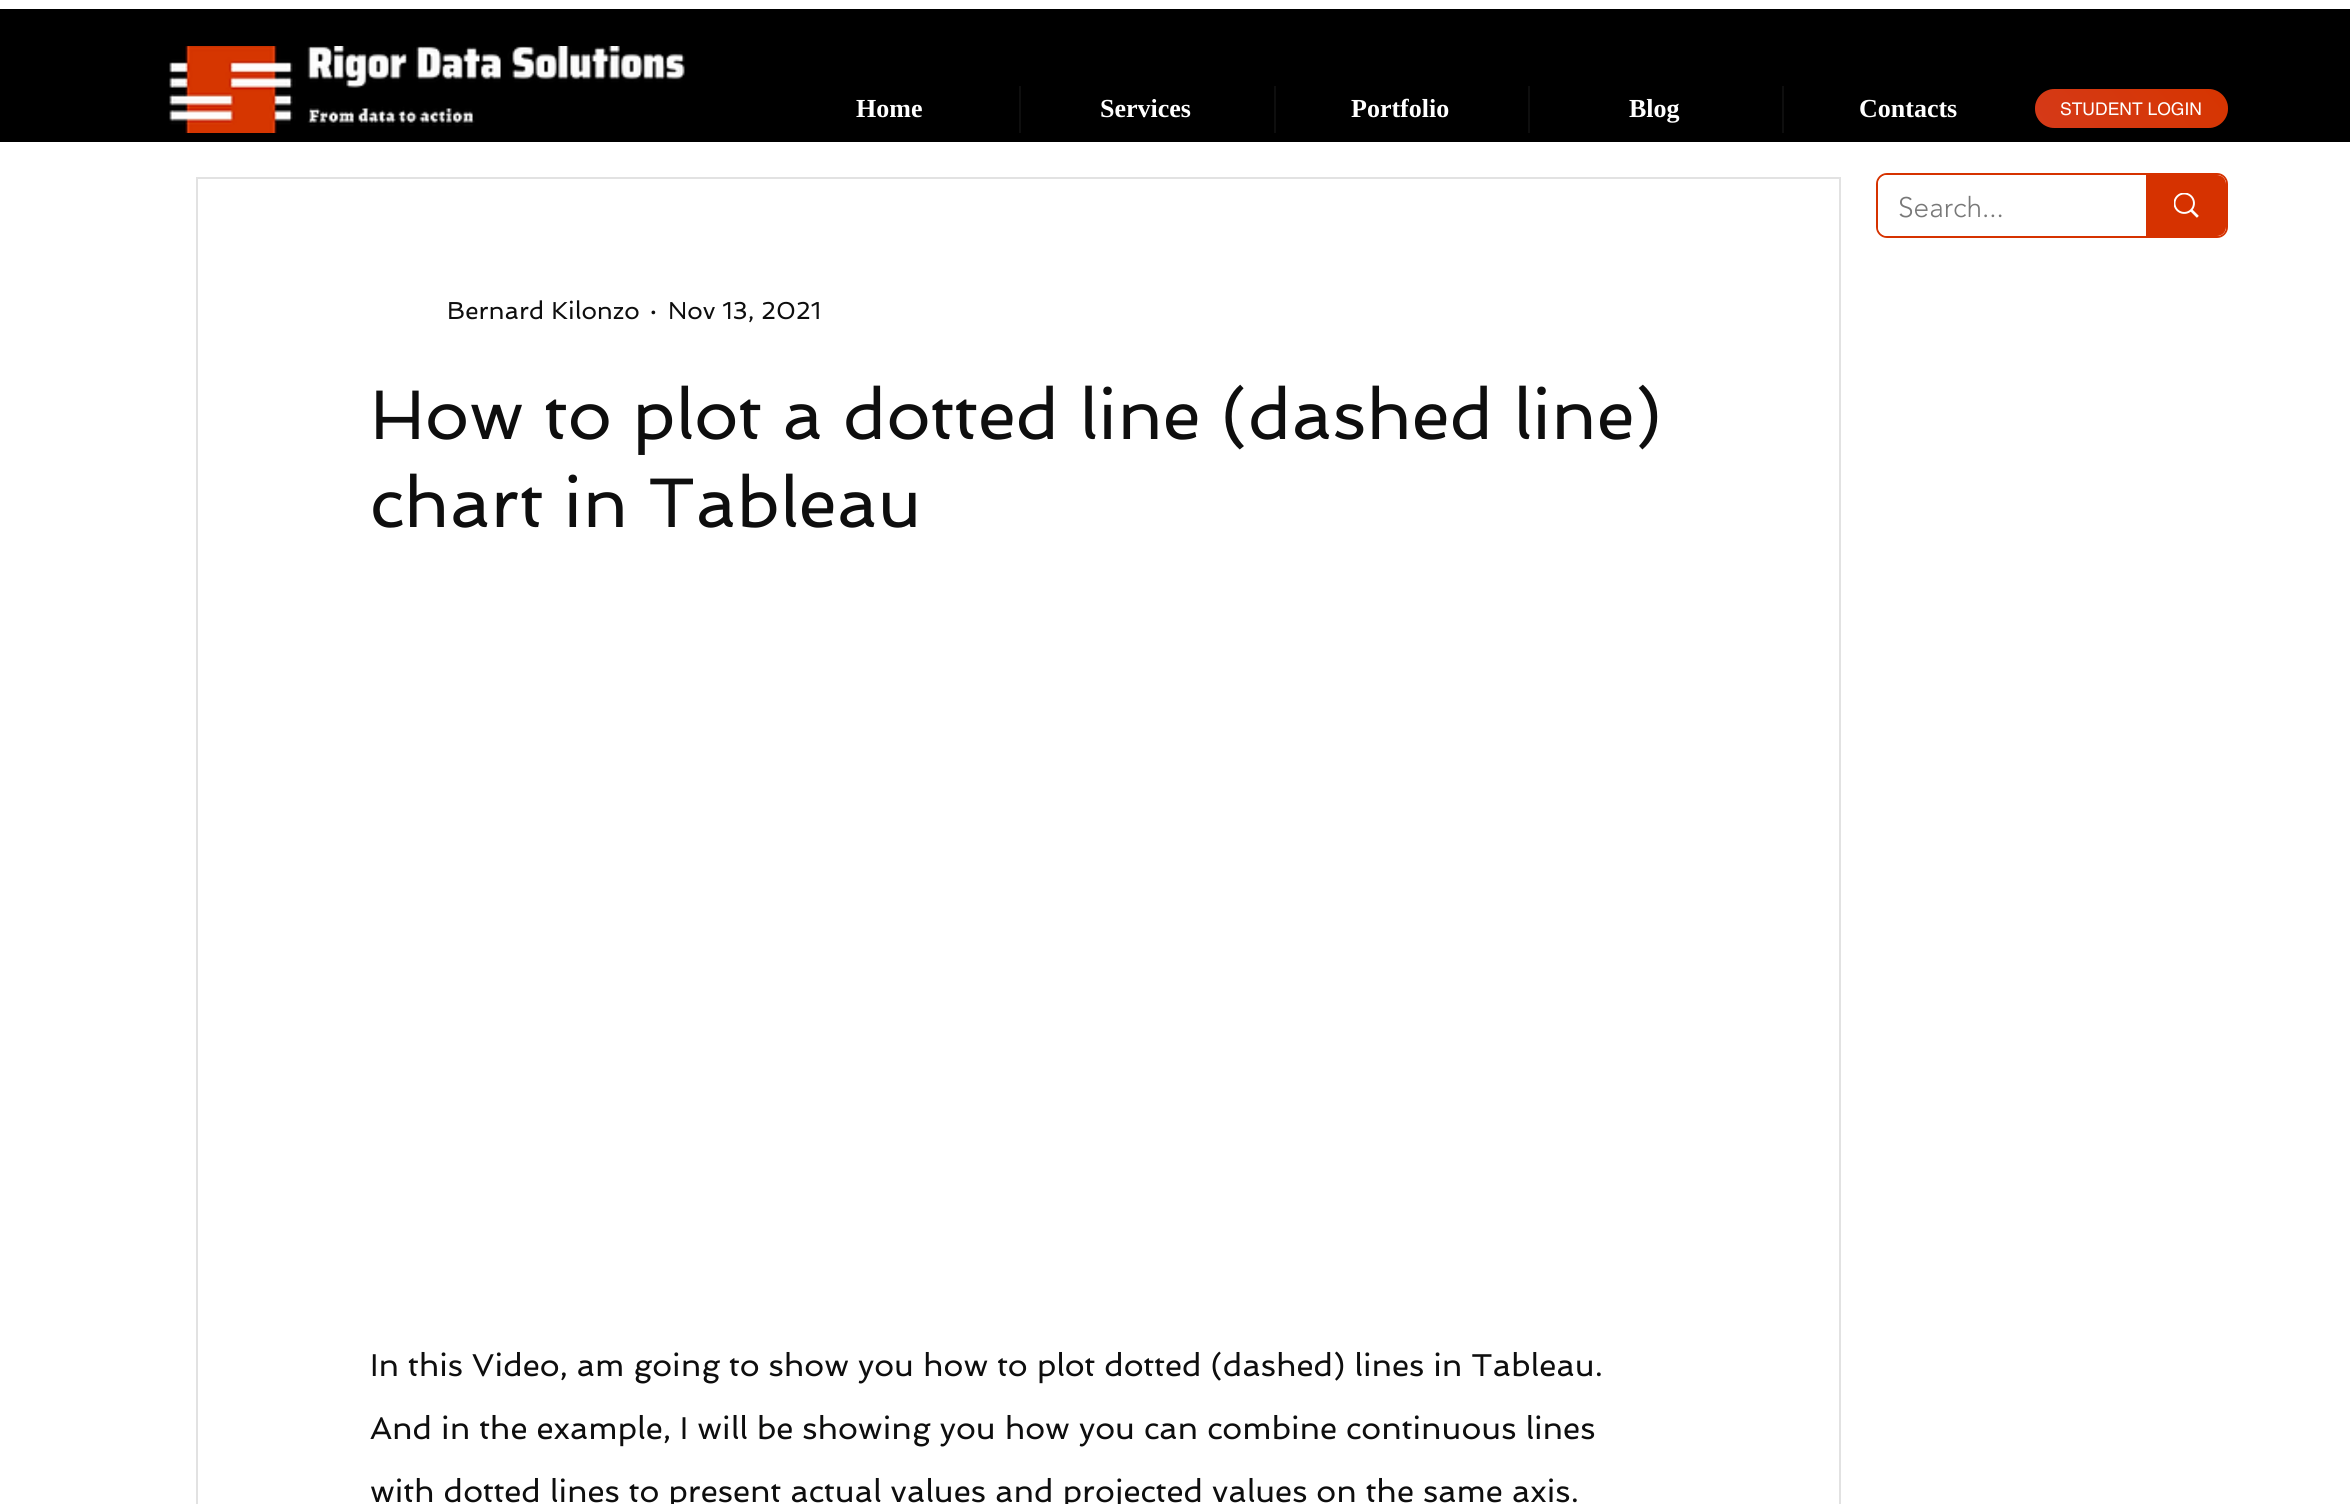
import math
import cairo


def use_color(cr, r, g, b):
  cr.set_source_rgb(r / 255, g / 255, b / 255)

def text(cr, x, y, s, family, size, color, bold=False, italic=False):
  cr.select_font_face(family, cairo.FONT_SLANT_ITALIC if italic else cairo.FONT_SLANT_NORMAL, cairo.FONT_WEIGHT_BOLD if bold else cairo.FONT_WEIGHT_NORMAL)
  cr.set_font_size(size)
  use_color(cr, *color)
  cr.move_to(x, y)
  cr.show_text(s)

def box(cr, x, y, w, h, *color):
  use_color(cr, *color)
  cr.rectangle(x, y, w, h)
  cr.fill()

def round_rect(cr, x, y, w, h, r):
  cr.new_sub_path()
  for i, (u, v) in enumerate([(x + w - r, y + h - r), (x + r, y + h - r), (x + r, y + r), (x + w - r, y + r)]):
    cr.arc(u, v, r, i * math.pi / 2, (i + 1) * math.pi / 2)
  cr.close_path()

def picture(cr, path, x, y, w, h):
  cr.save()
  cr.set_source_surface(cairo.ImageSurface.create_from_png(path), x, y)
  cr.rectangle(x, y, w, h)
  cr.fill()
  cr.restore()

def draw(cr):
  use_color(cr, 255, 255, 255)
  cr.paint()
  box(cr, 0, 9, 2350, 133, 0, 0, 0)
  picture(cr, "img_01.png", 169, 46, 516, 87)
  box(cr, 1019, 86, 2, 47, 14, 14, 14)
  box(cr, 1274, 86, 2, 47, 14, 14, 14)
  box(cr, 1528, 86, 2, 47, 14, 14, 14)
  box(cr, 1782, 86, 2, 47, 14, 14, 14)
  use_color(cr, 214, 54, 0)
  round_rect(cr, 2035, 89, 193, 39, 19.5)
  cr.fill()
  gradient = cairo.LinearGradient(2196, 53, 2067, 164)
  gradient.add_color_stop_rgba(0, 1, 0.31, 0.31, 0.22)
  gradient.add_color_stop_rgba(0, 0.839, 0.196, 0, 0.22)
  gradient.add_color_stop_rgba(0.83, 0.82, 0.267, 0.365, 0.22)
  gradient.add_color_stop_rgba(0.95, 0.816, 0.278, 0.42, 0.22)
  gradient.add_color_stop_rgba(1, 0.816, 0.282, 0.443, 0.22)
  gradient.add_color_stop_rgba(1, 0.612, 0.251, 0.592, 0.22)
  gradient.add_color_stop_rgba(1, 0.612, 0.251, 0.592, 0)
  cr.set_source(gradient)
  round_rect(cr, 2035, 89, 193, 39, 19.5)
  cr.fill()
  round_rect(cr, 1877, 174, 350, 63, 10)
  use_color(cr, 214, 50, 0)
  cr.stroke()
  use_color(cr, 255, 255, 255)
  round_rect(cr, 1878, 175, 348, 61, 9)
  cr.fill()
  use_color(cr, 214, 50, 0)
  cr.new_path()
  cr.move_to(2146, 175)
  cr.line_to(2217, 175)
  cr.curve_to(2222, 175, 2226, 179, 2226, 184)
  cr.line_to(2226, 227)
  cr.curve_to(2226, 232, 2222, 236, 2217, 236)
  cr.line_to(2146, 236)
  cr.close_path()
  cr.fill()
  picture(cr, "img_02.png", 2174, 193, 25, 25)
  cr.rectangle(197, 178, 1643, 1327)
  use_color(cr, 226, 226, 226)
  cr.stroke()
  text(cr, 856, 117, "Home", "Liberation Serif", 26, (255, 255, 255), bold=True)
  text(cr, 1100, 117, "Services", "Liberation Serif", 26, (255, 255, 255), bold=True)
  text(cr, 1351, 117, "Portfolio", "Liberation Serif", 26, (255, 255, 255), bold=True)
  text(cr, 1629, 117, "Blog", "Liberation Serif", 26, (255, 255, 255), bold=True)
  text(cr, 1859, 117, "Contacts", "Liberation Serif", 26, (255, 255, 255), bold=True)
  text(cr, 2060, 115, "STUDENT LOGIN", "helvetica", 17.5, (255, 255, 255))
  text(cr, 1898, 217, "Search...", "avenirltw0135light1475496 Light", 28, (120, 120, 120))
  text(cr, 447, 319, "Bernard Kilonzo", "Spinnaker", 24.5, (14, 14, 14))
  text(cr, 650, 319, "·", "Spinnaker", 24.5, (14, 14, 14))
  text(cr, 668, 319, "Nov 13, 2021", "Spinnaker", 24.5, (14, 14, 14))
  text(cr, 370, 439, "How to plot a dotted line (dashed line)", "Spinnaker", 70, (14, 14, 14))
  text(cr, 370, 527, "chart in Tableau", "Spinnaker", 70, (14, 14, 14))
  text(cr, 370, 1376, "In this Video, am going to show you how to plot dotted (dashed) lines in Tableau.", "Spinnaker", 31.5, (14, 14, 14))
  text(cr, 370, 1439, "And in the example, I will be showing you how you can combine continuous lines", "Spinnaker", 31.5, (14, 14, 14))
  text(cr, 370, 1502, "with dotted lines to present actual values and projected values on the same axis.", "Spinnaker", 31.5, (14, 14, 14))


surface = cairo.ImageSurface(cairo.FORMAT_RGB24, 2350, 1504)
cr = cairo.Context(surface)
options = cairo.FontOptions()
options.set_hint_metrics(cairo.HINT_METRICS_OFF)
options.set_hint_style(cairo.HINT_STYLE_NONE)
cr.set_font_options(options)
cr.set_miter_limit(4)
draw(cr)
surface.write_to_png("out.png")
